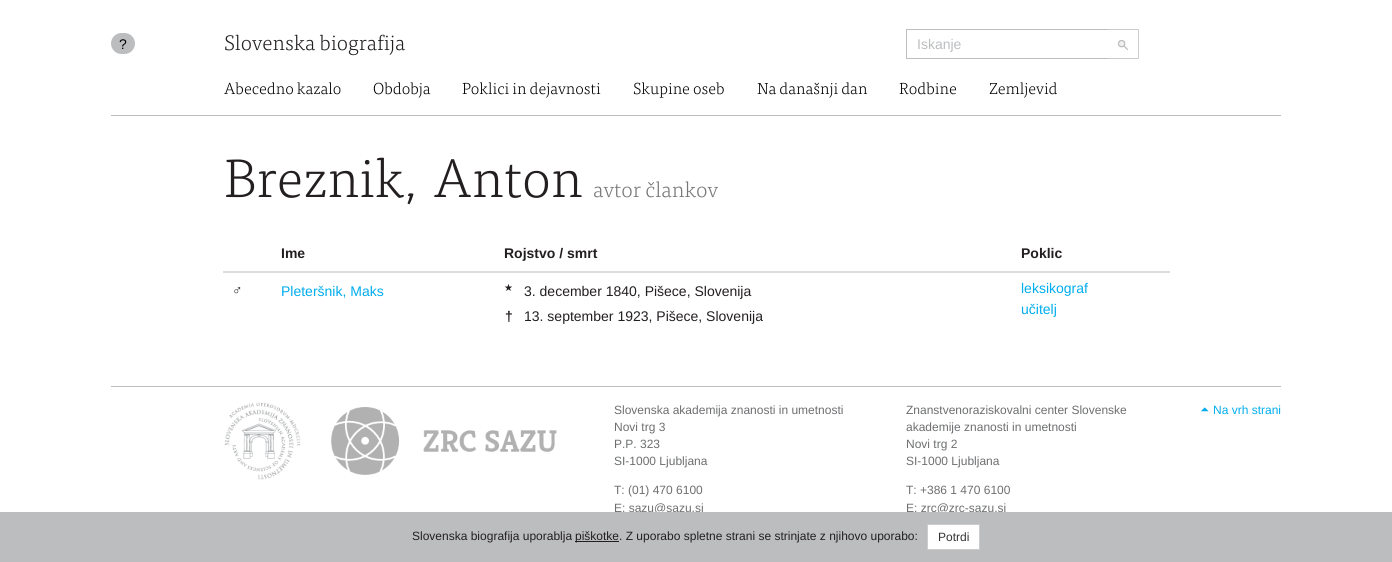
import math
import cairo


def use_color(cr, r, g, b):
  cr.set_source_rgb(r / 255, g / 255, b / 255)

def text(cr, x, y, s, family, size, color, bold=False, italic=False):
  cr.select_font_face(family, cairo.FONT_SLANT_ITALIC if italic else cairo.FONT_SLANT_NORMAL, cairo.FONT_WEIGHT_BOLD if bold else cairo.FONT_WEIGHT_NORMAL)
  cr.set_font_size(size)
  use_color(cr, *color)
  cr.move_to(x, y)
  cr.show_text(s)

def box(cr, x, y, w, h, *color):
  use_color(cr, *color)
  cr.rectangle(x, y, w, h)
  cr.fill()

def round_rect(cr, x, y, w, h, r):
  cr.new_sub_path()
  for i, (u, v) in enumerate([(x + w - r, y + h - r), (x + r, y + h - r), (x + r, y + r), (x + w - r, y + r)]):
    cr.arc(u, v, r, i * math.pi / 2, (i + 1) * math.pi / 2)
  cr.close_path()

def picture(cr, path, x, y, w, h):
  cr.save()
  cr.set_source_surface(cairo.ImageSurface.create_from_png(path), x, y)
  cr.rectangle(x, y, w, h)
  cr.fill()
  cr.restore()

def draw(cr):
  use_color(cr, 255, 255, 255)
  cr.paint()
  box(cr, 111, 115, 1170, 1, 187, 189, 191)
  round_rect(cr, 111, 33, 24, 21, 10.5)
  cr.fill()
  box(cr, 906, 29, 203, 1, 187, 189, 191)
  box(cr, 906, 58, 203, 1, 187, 189, 191)
  box(cr, 906, 29, 1, 30, 187, 189, 191)
  box(cr, 1108, 29, 31, 1, 204, 204, 204)
  box(cr, 1138, 29, 1, 30, 204, 204, 204)
  box(cr, 1108, 58, 31, 1, 204, 204, 204)
  picture(cr, "img_01.png", 1118, 40, 10, 10)
  box(cr, 111, 386, 1170, 1, 187, 189, 191)
  box(cr, 223, 271, 947, 2, 221, 221, 221)
  picture(cr, "img_02.png", 224, 402, 77, 78)
  picture(cr, "img_03.png", 331, 407, 226, 68)
  picture(cr, "img_04.png", 1201, 407, 8, 5)
  text(cr, 119, 49, "?", "Liberation Sans", 14, (0, 0, 0))
  text(cr, 224, 50, "Slovenska biografija", "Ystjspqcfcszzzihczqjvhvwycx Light", 21, (35, 31, 32))
  text(cr, 917, 49, "Iskanje", "Liberation Sans", 14, (187, 189, 191))
  text(cr, 224, 94, "Abecedno kazalo", "Ystjspqcfcszzzihczqjvhvwycx Light", 16, (0, 0, 0))
  text(cr, 373, 94, "Obdobja", "Ystjspqcfcszzzihczqjvhvwycx Light", 16, (0, 0, 0))
  text(cr, 462, 94, "Poklici in dejavnosti", "Ystjspqcfcszzzihczqjvhvwycx Light", 16, (0, 0, 0))
  text(cr, 633, 94, "Skupine oseb", "Ystjspqcfcszzzihczqjvhvwycx Light", 16, (0, 0, 0))
  text(cr, 757, 94, "Na današnji dan", "Ystjspqcfcszzzihczqjvhvwycx Light", 16, (0, 0, 0))
  text(cr, 899, 94, "Rodbine", "Ystjspqcfcszzzihczqjvhvwycx Light", 16, (0, 0, 0))
  text(cr, 989, 94, "Zemljevid", "Ystjspqcfcszzzihczqjvhvwycx Light", 16, (0, 0, 0))
  text(cr, 224, 197, "Breznik, Anton", "Ystjspqcfcszzzihczqjvhvwycx Light", 54, (35, 31, 32))
  text(cr, 593, 197, "avtor člankov", "Ystjspqcfcszzzihczqjvhvwycx Light", 21.5, (119, 119, 119))
  text(cr, 281, 258, "Ime", "Liberation Sans", 14, (35, 31, 32), bold=True)
  text(cr, 504, 258, "Rojstvo / smrt", "Liberation Sans", 14, (35, 31, 32), bold=True)
  text(cr, 1021, 258, "Poklic", "Liberation Sans", 14, (35, 31, 32), bold=True)
  text(cr, 232, 295, "♂", "Liberation Serif", 14, (35, 31, 32))
  text(cr, 281, 296, "Pleteršnik, Maks", "Liberation Sans", 14, (0, 173, 238))
  text(cr, 504, 291, "★", "DejaVu Sans", 10, (35, 31, 32))
  text(cr, 524, 296, "3. december 1840, Pišece, Slovenija", "Liberation Sans", 14, (35, 31, 32))
  text(cr, 505, 321, "†", "Liberation Sans", 14, (35, 31, 32), bold=True)
  text(cr, 524, 321, "13. september 1923, Pišece, Slovenija", "Liberation Sans", 14, (35, 31, 32))
  text(cr, 1021, 293, "leksikograf", "Liberation Sans", 14, (0, 173, 238))
  text(cr, 1021, 314, "učitelj", "Liberation Sans", 14, (0, 173, 238))
  text(cr, 614, 414, "Slovenska akademija znanosti in umetnosti", "Liberation Sans", 12, (109, 110, 112))
  text(cr, 614, 431, "Novi trg 3", "Liberation Sans", 12, (109, 110, 112))
  text(cr, 614, 448, "P.P. 323", "Liberation Sans", 12, (109, 110, 112))
  text(cr, 614, 465, "SI-1000 Ljubljana", "Liberation Sans", 12, (109, 110, 112))
  text(cr, 614, 494, "T: (01) 470 6100", "Liberation Sans", 12, (109, 110, 112))
  text(cr, 614, 512, "E: sazu@sazu.si", "Liberation Sans", 12, (109, 110, 112))
  text(cr, 906, 414, "Znanstvenoraziskovalni center Slovenske", "Liberation Sans", 12, (109, 110, 112))
  text(cr, 906, 431, "akademije znanosti in umetnosti", "Liberation Sans", 12, (109, 110, 112))
  text(cr, 906, 448, "Novi trg 2", "Liberation Sans", 12, (109, 110, 112))
  text(cr, 906, 465, "SI-1000 Ljubljana", "Liberation Sans", 12, (109, 110, 112))
  text(cr, 906, 494, "T: +386 1 470 6100", "Liberation Sans", 12, (109, 110, 112))
  text(cr, 906, 512, "E: zrc@zrc-sazu.si", "Liberation Sans", 12, (109, 110, 112))
  text(cr, 1213, 414, "Na vrh strani", "Liberation Sans", 12, (0, 173, 238))
  box(cr, 0, 512, 1392, 50, 187, 189, 191)
  text(cr, 412, 540, "Slovenska biografija uporablja", "Liberation Sans", 12, (35, 31, 32))
  box(cr, 575, 541, 44, 1, 35, 31, 32)
  text(cr, 575, 540, "piškotke. Z uporabo spletne strani se strinjate z njihovo uporabo:", "Liberation Sans", 12, (35, 31, 32))
  use_color(cr, 255, 255, 255)
  cr.rectangle(927.5, 524.5, 52, 25)
  cr.fill_preserve()
  use_color(cr, 204, 204, 204)
  cr.set_line_width(1)
  cr.stroke()
  text(cr, 938, 541, "Potrdi", "Liberation Sans", 12, (51, 51, 51))


surface = cairo.ImageSurface(cairo.FORMAT_RGB24, 1392, 562)
cr = cairo.Context(surface)
options = cairo.FontOptions()
options.set_hint_metrics(cairo.HINT_METRICS_OFF)
options.set_hint_style(cairo.HINT_STYLE_NONE)
cr.set_font_options(options)
cr.set_miter_limit(4)
draw(cr)
surface.write_to_png("out.png")
